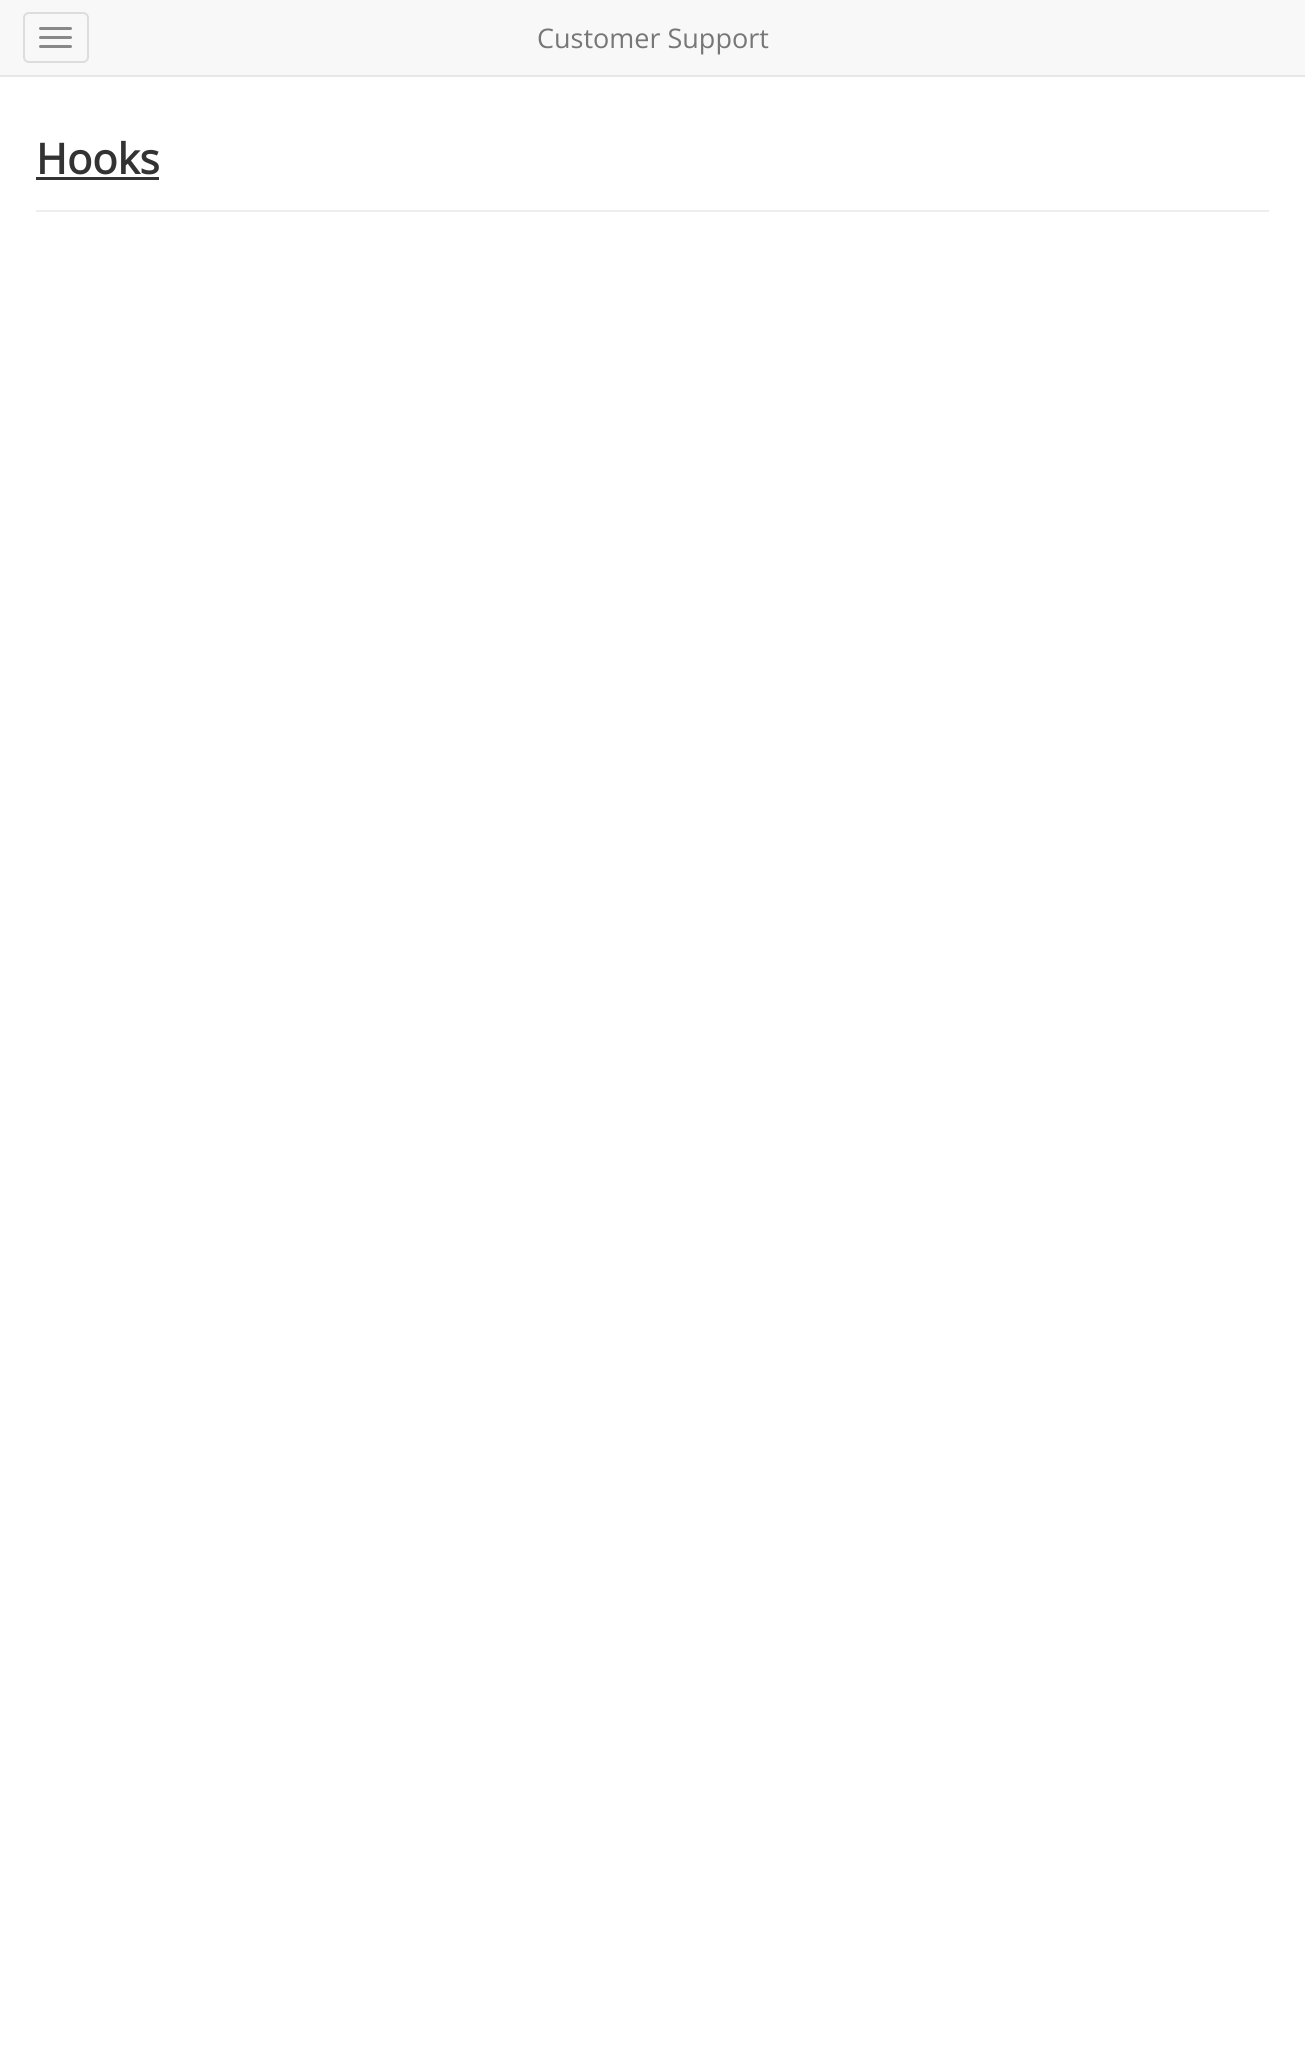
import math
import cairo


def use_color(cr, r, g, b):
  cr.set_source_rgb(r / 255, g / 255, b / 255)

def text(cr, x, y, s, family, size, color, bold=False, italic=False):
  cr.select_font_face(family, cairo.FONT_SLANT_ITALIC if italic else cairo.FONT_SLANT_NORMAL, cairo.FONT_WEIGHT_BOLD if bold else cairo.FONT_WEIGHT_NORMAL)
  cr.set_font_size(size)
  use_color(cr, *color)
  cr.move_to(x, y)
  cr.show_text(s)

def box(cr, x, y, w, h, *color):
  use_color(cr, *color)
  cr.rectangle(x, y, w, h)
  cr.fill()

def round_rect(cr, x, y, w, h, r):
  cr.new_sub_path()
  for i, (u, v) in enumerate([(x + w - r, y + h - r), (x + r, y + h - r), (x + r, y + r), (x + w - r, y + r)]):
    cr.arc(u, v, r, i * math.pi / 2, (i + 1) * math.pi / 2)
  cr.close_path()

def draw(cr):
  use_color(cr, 255, 255, 255)
  cr.paint()
  box(cr, 0, 0, 1305, 75, 248, 248, 248)
  box(cr, 0, 75, 1305, 2, 231, 231, 231)
  round_rect(cr, 24, 13, 64, 49, 5)
  use_color(cr, 221, 221, 221)
  cr.stroke()
  use_color(cr, 136, 136, 136)
  round_rect(cr, 39, 27, 33, 3, 1.5)
  cr.fill()
  round_rect(cr, 39, 36, 33, 3, 1.5)
  cr.fill()
  round_rect(cr, 39, 45, 33, 3, 1.5)
  cr.fill()
  box(cr, 36, 210, 1233, 2, 238, 238, 238)
  box(cr, 36, 177, 123, 3, 51, 51, 51)
  text(cr, 537, 48, "Customer Support", "Open Sans", 27, (119, 119, 119))
  text(cr, 36, 174, "Hooks", "Open Sans", 42, (51, 51, 51), bold=True)


surface = cairo.ImageSurface(cairo.FORMAT_RGB24, 1305, 2063)
cr = cairo.Context(surface)
options = cairo.FontOptions()
options.set_hint_metrics(cairo.HINT_METRICS_OFF)
options.set_hint_style(cairo.HINT_STYLE_NONE)
cr.set_font_options(options)
cr.set_miter_limit(4)
draw(cr)
surface.write_to_png("out.png")
